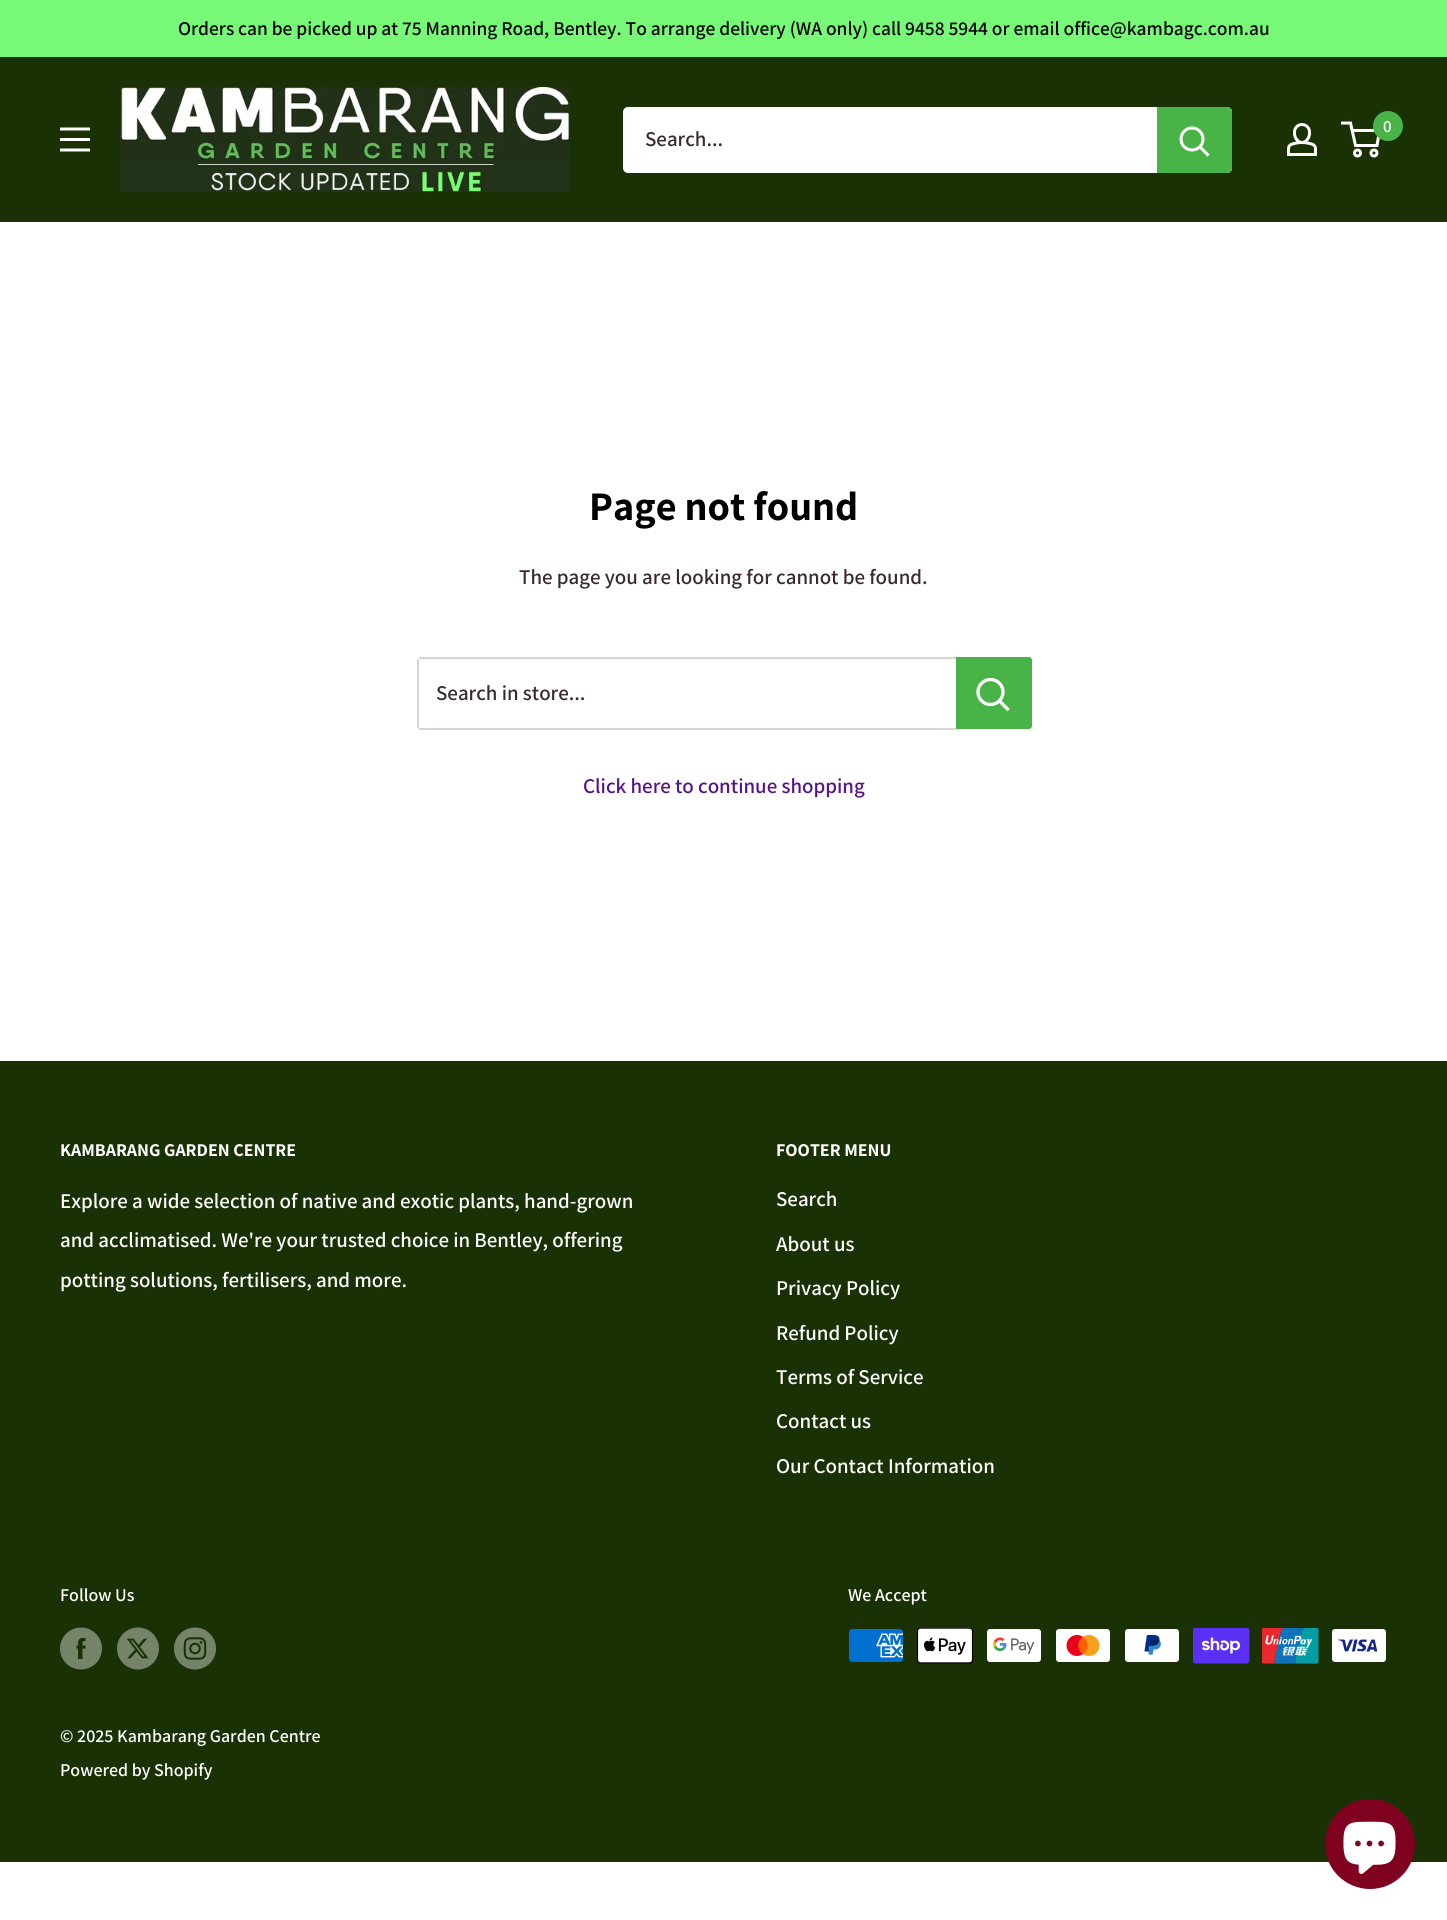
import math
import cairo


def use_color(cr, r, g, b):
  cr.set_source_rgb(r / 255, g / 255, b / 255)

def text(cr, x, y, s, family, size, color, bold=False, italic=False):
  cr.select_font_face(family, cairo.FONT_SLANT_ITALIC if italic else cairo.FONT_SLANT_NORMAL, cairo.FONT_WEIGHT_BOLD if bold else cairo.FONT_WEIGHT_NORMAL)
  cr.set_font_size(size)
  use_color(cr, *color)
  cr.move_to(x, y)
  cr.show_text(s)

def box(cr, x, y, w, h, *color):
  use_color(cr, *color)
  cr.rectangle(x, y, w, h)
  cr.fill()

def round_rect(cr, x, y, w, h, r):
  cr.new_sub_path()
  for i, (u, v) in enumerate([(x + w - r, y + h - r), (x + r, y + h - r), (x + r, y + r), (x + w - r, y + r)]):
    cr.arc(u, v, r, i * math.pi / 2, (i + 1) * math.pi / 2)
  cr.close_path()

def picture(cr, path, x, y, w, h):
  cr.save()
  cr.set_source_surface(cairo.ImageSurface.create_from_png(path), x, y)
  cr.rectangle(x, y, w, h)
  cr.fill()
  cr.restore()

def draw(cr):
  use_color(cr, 255, 255, 255)
  cr.paint()
  box(cr, 0, 0, 1447, 57, 119, 248, 119)
  box(cr, 0, 57, 1447, 165, 25, 49, 4)
  picture(cr, "img_01.png", 60, 127, 30, 25)
  picture(cr, "img_02.png", 120, 87, 450, 105)
  use_color(cr, 255, 255, 255)
  round_rect(cr, 623, 107, 609, 66, 5)
  cr.fill()
  use_color(cr, 72, 180, 72)
  cr.new_path()
  cr.move_to(1157, 107)
  cr.line_to(1227, 107)
  cr.curve_to(1230, 107, 1232, 109, 1232, 112)
  cr.line_to(1232, 168)
  cr.curve_to(1232, 171, 1230, 173, 1227, 173)
  cr.line_to(1157, 173)
  cr.close_path()
  cr.fill()
  cr.new_path()
  cr.move_to(1207.5, 154.5)
  cr.line_to(1200, 147)
  use_color(cr, 255, 255, 255)
  cr.set_line_width(3)
  cr.set_line_cap(cairo.LINE_CAP_SQUARE)
  cr.stroke()
  cr.arc(1192, 139, 11, 0, 2 * math.pi)
  cr.set_line_cap(cairo.LINE_CAP_BUTT)
  cr.stroke()
  picture(cr, "img_03.png", 1287, 123, 30, 33)
  cr.arc(1357.5, 153, 3, 0, 2 * math.pi)
  cr.stroke()
  cr.arc(1374, 153, 3, 0, 2 * math.pi)
  cr.stroke()
  cr.new_path()
  cr.move_to(1352, 130.5)
  cr.line_to(1379.5, 130.5)
  cr.line_to(1377, 145.5)
  cr.line_to(1355.5, 145.5)
  cr.line_to(1350.5, 123)
  cr.line_to(1341, 123)
  cr.stroke()
  use_color(cr, 72, 180, 72)
  cr.arc(1388, 126, 15, 0, 2 * math.pi)
  cr.fill()
  use_color(cr, 249, 248, 247)
  cr.new_path()
  cr.move_to(420, 660)
  cr.line_to(956, 660)
  cr.line_to(956, 659)
  cr.line_to(420, 659)
  cr.curve_to(420, 659, 419, 660, 419, 660)
  cr.close_path()
  cr.fill()
  box(cr, 419, 657, 537, 2, 220, 213, 207)
  box(cr, 419, 728, 537, 2, 220, 213, 207)
  box(cr, 417, 659, 2, 69, 220, 213, 207)
  use_color(cr, 72, 180, 72)
  cr.new_path()
  cr.move_to(956, 657)
  cr.line_to(1029, 657)
  cr.curve_to(1030.5, 657, 1032, 658.5, 1032, 660)
  cr.line_to(1032, 726)
  cr.curve_to(1032, 727.5, 1030.5, 729, 1029, 729)
  cr.line_to(956, 729)
  cr.close_path()
  cr.fill()
  cr.new_path()
  cr.move_to(1007.5, 709)
  cr.line_to(999.5, 701)
  use_color(cr, 255, 255, 255)
  cr.set_line_width(3.3)
  cr.set_line_cap(cairo.LINE_CAP_SQUARE)
  cr.stroke()
  cr.arc(990.5, 692, 12.5, 0, 2 * math.pi)
  cr.set_line_cap(cairo.LINE_CAP_BUTT)
  cr.stroke()
  box(cr, 0, 1061, 1447, 801, 25, 49, 4)
  picture(cr, "img_04.png", 60, 1627, 42, 43)
  picture(cr, "img_05.png", 117, 1627, 42, 43)
  picture(cr, "img_06.png", 174, 1627, 42, 43)
  picture(cr, "img_07.png", 849, 1629, 54, 33)
  picture(cr, "img_08.png", 917, 1628, 57, 36)
  picture(cr, "img_09.png", 987, 1629, 54, 33)
  picture(cr, "img_10.png", 1056, 1629, 54, 33)
  picture(cr, "img_11.png", 1125, 1629, 54, 33)
  picture(cr, "img_12.png", 1193, 1628, 57, 36)
  picture(cr, "img_13.png", 1262, 1628, 57, 36)
  picture(cr, "img_14.png", 1332, 1629, 54, 33)
  use_color(cr, 128, 0, 32)
  cr.arc(1370, 1844, 45, 0, 2 * math.pi)
  cr.fill()
  picture(cr, "img_15.png", 1343, 1821, 53, 53)
  text(cr, 178, 35, "Orders can be picked up at 75 Manning Road, Bentley. To arrange delivery (WA only) call 9458 5944 or email office@kambagc.com.au", "Assistant SemiBold", 19.5, (0, 0, 0))
  text(cr, 645, 146, "Search...", "Assistant SemiBold", 21, (58, 42, 47))
  text(cr, 1383, 132, "0", "Assistant SemiBold", 17, (255, 255, 255))
  text(cr, 589, 520, "Page not found", "Assistant", 40.5, (0, 0, 0), bold=True)
  text(cr, 519, 584, "The page you are looking for cannot be found.", "Assistant SemiBold", 21, (58, 42, 47))
  text(cr, 436, 700, "Search in store...", "Assistant SemiBold", 21, (58, 42, 47))
  text(cr, 583, 793, "Click here to continue shopping", "Assistant SemiBold", 21, (86, 21, 134))
  text(cr, 60, 1156, "KAMBARANG GARDEN CENTRE", "Assistant", 18, (255, 255, 255), bold=True)
  text(cr, 60, 1208, "Explore a wide selection of native and exotic plants, hand-grown", "Assistant SemiBold", 21, (255, 255, 255))
  text(cr, 60, 1247, "and acclimatised. We're your trusted choice in Bentley, offering", "Assistant SemiBold", 21, (255, 255, 255))
  text(cr, 60, 1287, "potting solutions, fertilisers, and more.", "Assistant SemiBold", 21, (255, 255, 255))
  text(cr, 776, 1156, "FOOTER MENU", "Assistant", 18, (255, 255, 255), bold=True)
  text(cr, 776, 1206, "Search", "Assistant SemiBold", 21, (255, 255, 255))
  text(cr, 776, 1251, "About us", "Assistant SemiBold", 21, (255, 255, 255))
  text(cr, 776, 1295, "Privacy Policy", "Assistant SemiBold", 21, (255, 255, 255))
  text(cr, 776, 1340, "Refund Policy", "Assistant SemiBold", 21, (255, 255, 255))
  text(cr, 776, 1384, "Terms of Service", "Assistant SemiBold", 21, (255, 255, 255))
  text(cr, 776, 1428, "Contact us", "Assistant SemiBold", 21, (255, 255, 255))
  text(cr, 776, 1473, "Our Contact Information", "Assistant SemiBold", 21, (255, 255, 255))
  text(cr, 60, 1601, "Follow Us", "Assistant SemiBold", 18, (255, 255, 255))
  text(cr, 848, 1601, "We Accept", "Assistant SemiBold", 18, (255, 255, 255))
  text(cr, 60, 1742, "© 2025 Kambarang Garden Centre", "Assistant SemiBold", 18, (255, 255, 255))
  text(cr, 60, 1776, "Powered by Shopify", "Assistant SemiBold", 18, (255, 255, 255))


surface = cairo.ImageSurface(cairo.FORMAT_RGB24, 1447, 1920)
cr = cairo.Context(surface)
options = cairo.FontOptions()
options.set_hint_metrics(cairo.HINT_METRICS_OFF)
options.set_hint_style(cairo.HINT_STYLE_NONE)
cr.set_font_options(options)
cr.set_miter_limit(4)
draw(cr)
surface.write_to_png("out.png")
